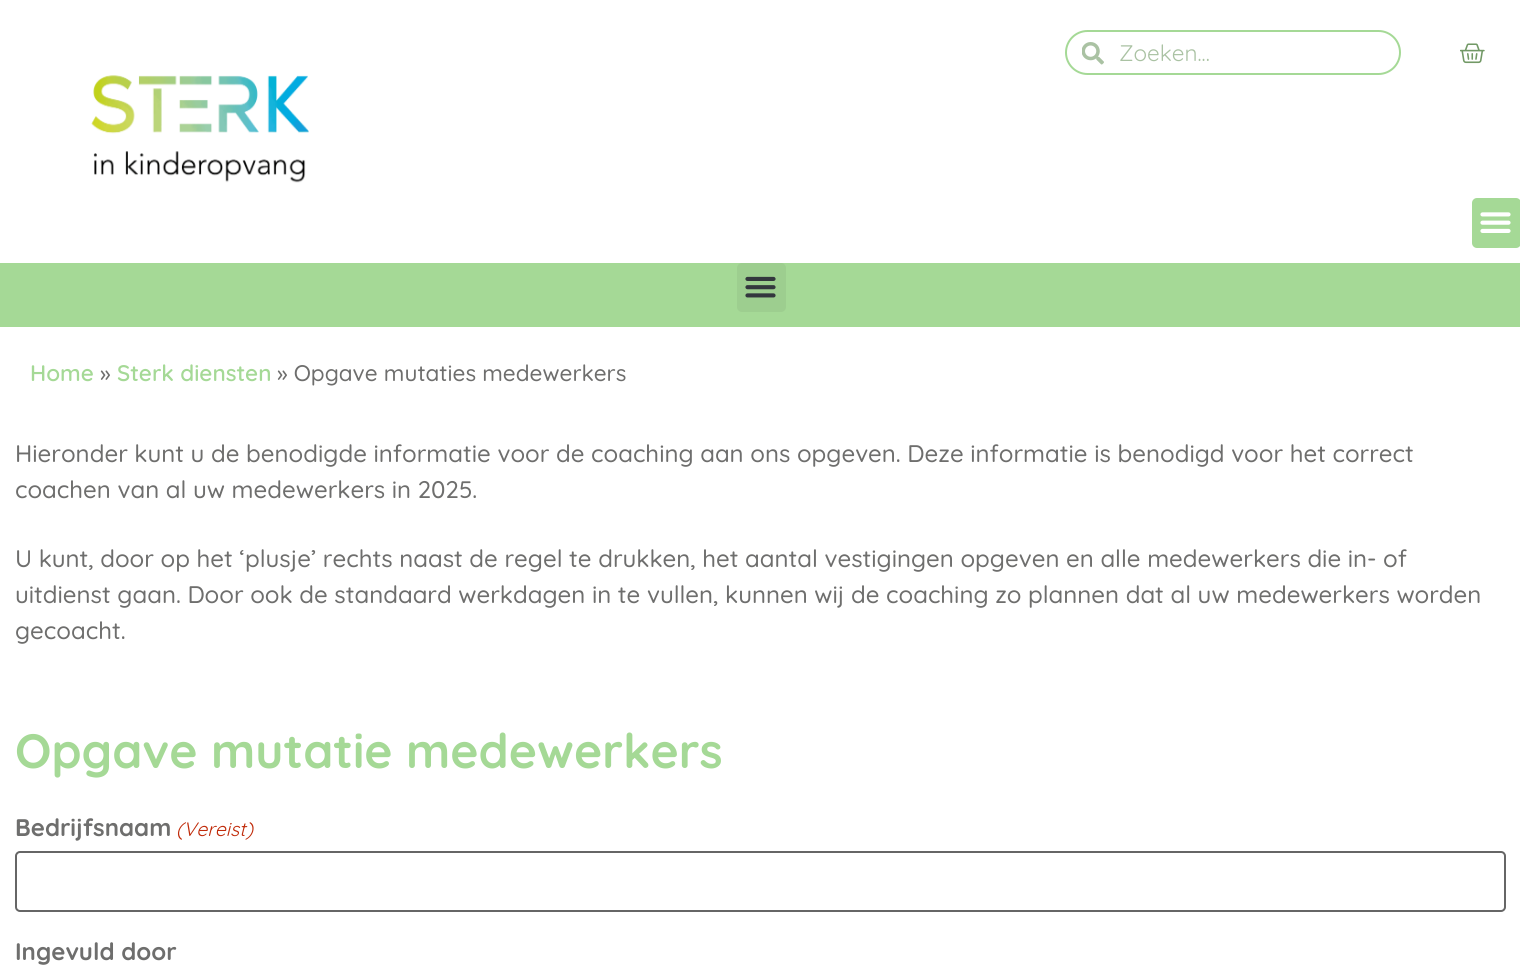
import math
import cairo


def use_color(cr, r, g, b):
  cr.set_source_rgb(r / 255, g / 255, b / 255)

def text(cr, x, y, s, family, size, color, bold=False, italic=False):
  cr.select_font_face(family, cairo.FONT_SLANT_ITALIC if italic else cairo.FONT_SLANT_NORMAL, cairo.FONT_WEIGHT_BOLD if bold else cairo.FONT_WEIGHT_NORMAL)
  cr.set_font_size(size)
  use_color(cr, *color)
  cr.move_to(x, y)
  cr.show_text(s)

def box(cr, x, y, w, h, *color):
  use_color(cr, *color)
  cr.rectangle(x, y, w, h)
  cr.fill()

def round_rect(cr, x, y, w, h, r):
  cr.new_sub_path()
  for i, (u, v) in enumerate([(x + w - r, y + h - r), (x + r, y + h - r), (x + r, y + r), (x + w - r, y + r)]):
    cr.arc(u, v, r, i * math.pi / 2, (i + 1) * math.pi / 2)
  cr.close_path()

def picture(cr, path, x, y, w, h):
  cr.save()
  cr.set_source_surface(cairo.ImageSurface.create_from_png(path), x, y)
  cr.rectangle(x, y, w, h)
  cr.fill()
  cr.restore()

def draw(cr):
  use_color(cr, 255, 255, 255)
  cr.paint()
  round_rect(cr, 1066, 31, 334, 43, 21.5)
  use_color(cr, 165, 217, 150)
  cr.stroke()
  picture(cr, "img_01.png", 1082, 42, 22, 23)
  picture(cr, "img_02.png", 1460, 43, 25, 21)
  picture(cr, "img_03.png", 91, 75, 218, 108)
  round_rect(cr, 1472, 198, 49, 50, 5)
  cr.fill()
  picture(cr, "img_04.png", 1480, 212, 31, 21)
  box(cr, 0, 263, 1520, 64, 165, 217, 150)
  use_color(cr, 157, 206, 143)
  round_rect(cr, 737, 263, 49, 49, 5)
  cr.fill()
  picture(cr, "img_05.png", 745, 276, 31, 22)
  round_rect(cr, 16, 852, 1489, 59, 4)
  use_color(cr, 102, 102, 102)
  cr.stroke()
  text(cr, 1119, 61, "Zoeken...", "Quicksand", 22.5, (170, 194, 163))
  text(cr, 30, 381, "Home", "Quicksand SemiBold", 22.5, (165, 217, 150))
  text(cr, 100, 381, "»", "Quicksand Medium", 22.5, (110, 110, 109))
  text(cr, 117, 381, "Sterk diensten", "Quicksand SemiBold", 22.5, (165, 217, 150))
  text(cr, 277, 381, "» Opgave mutaties medewerkers", "Quicksand Medium", 22.5, (110, 110, 109))
  text(cr, 15, 462, "Hieronder kunt u de benodigde informatie voor de coaching aan ons opgeven. Deze informatie is benodigd voor het correct", "Quicksand Medium", 24, (110, 110, 109))
  text(cr, 15, 498, "coachen van al uw medewerkers in 2025.", "Quicksand Medium", 24, (110, 110, 109))
  text(cr, 15, 567, "U kunt, door op het ‘plusje’ rechts naast de regel te drukken, het aantal vestigingen opgeven en alle medewerkers die in- of", "Quicksand Medium", 24, (110, 110, 109))
  text(cr, 15, 603, "uitdienst gaan. Door ook de standaard werkdagen in te vullen, kunnen wij de coaching zo plannen dat al uw medewerkers worden", "Quicksand Medium", 24, (110, 110, 109))
  text(cr, 15, 639, "gecoacht.", "Quicksand Medium", 24, (110, 110, 109))
  text(cr, 15, 768, "Opgave mutatie medewerkers", "Quicksand", 48, (165, 217, 150), bold=True)
  text(cr, 15, 836, "Bedrijfsnaam", "Quicksand", 24, (110, 110, 109), bold=True)
  text(cr, 176, 836, "(Vereist)", "Quicksand", 19.5, (192, 43, 10), italic=True)
  text(cr, 15, 960, "Ingevuld door", "Quicksand", 24, (110, 110, 109), bold=True)


surface = cairo.ImageSurface(cairo.FORMAT_RGB24, 1520, 968)
cr = cairo.Context(surface)
options = cairo.FontOptions()
options.set_hint_metrics(cairo.HINT_METRICS_OFF)
options.set_hint_style(cairo.HINT_STYLE_NONE)
cr.set_font_options(options)
cr.set_miter_limit(4)
draw(cr)
surface.write_to_png("out.png")
